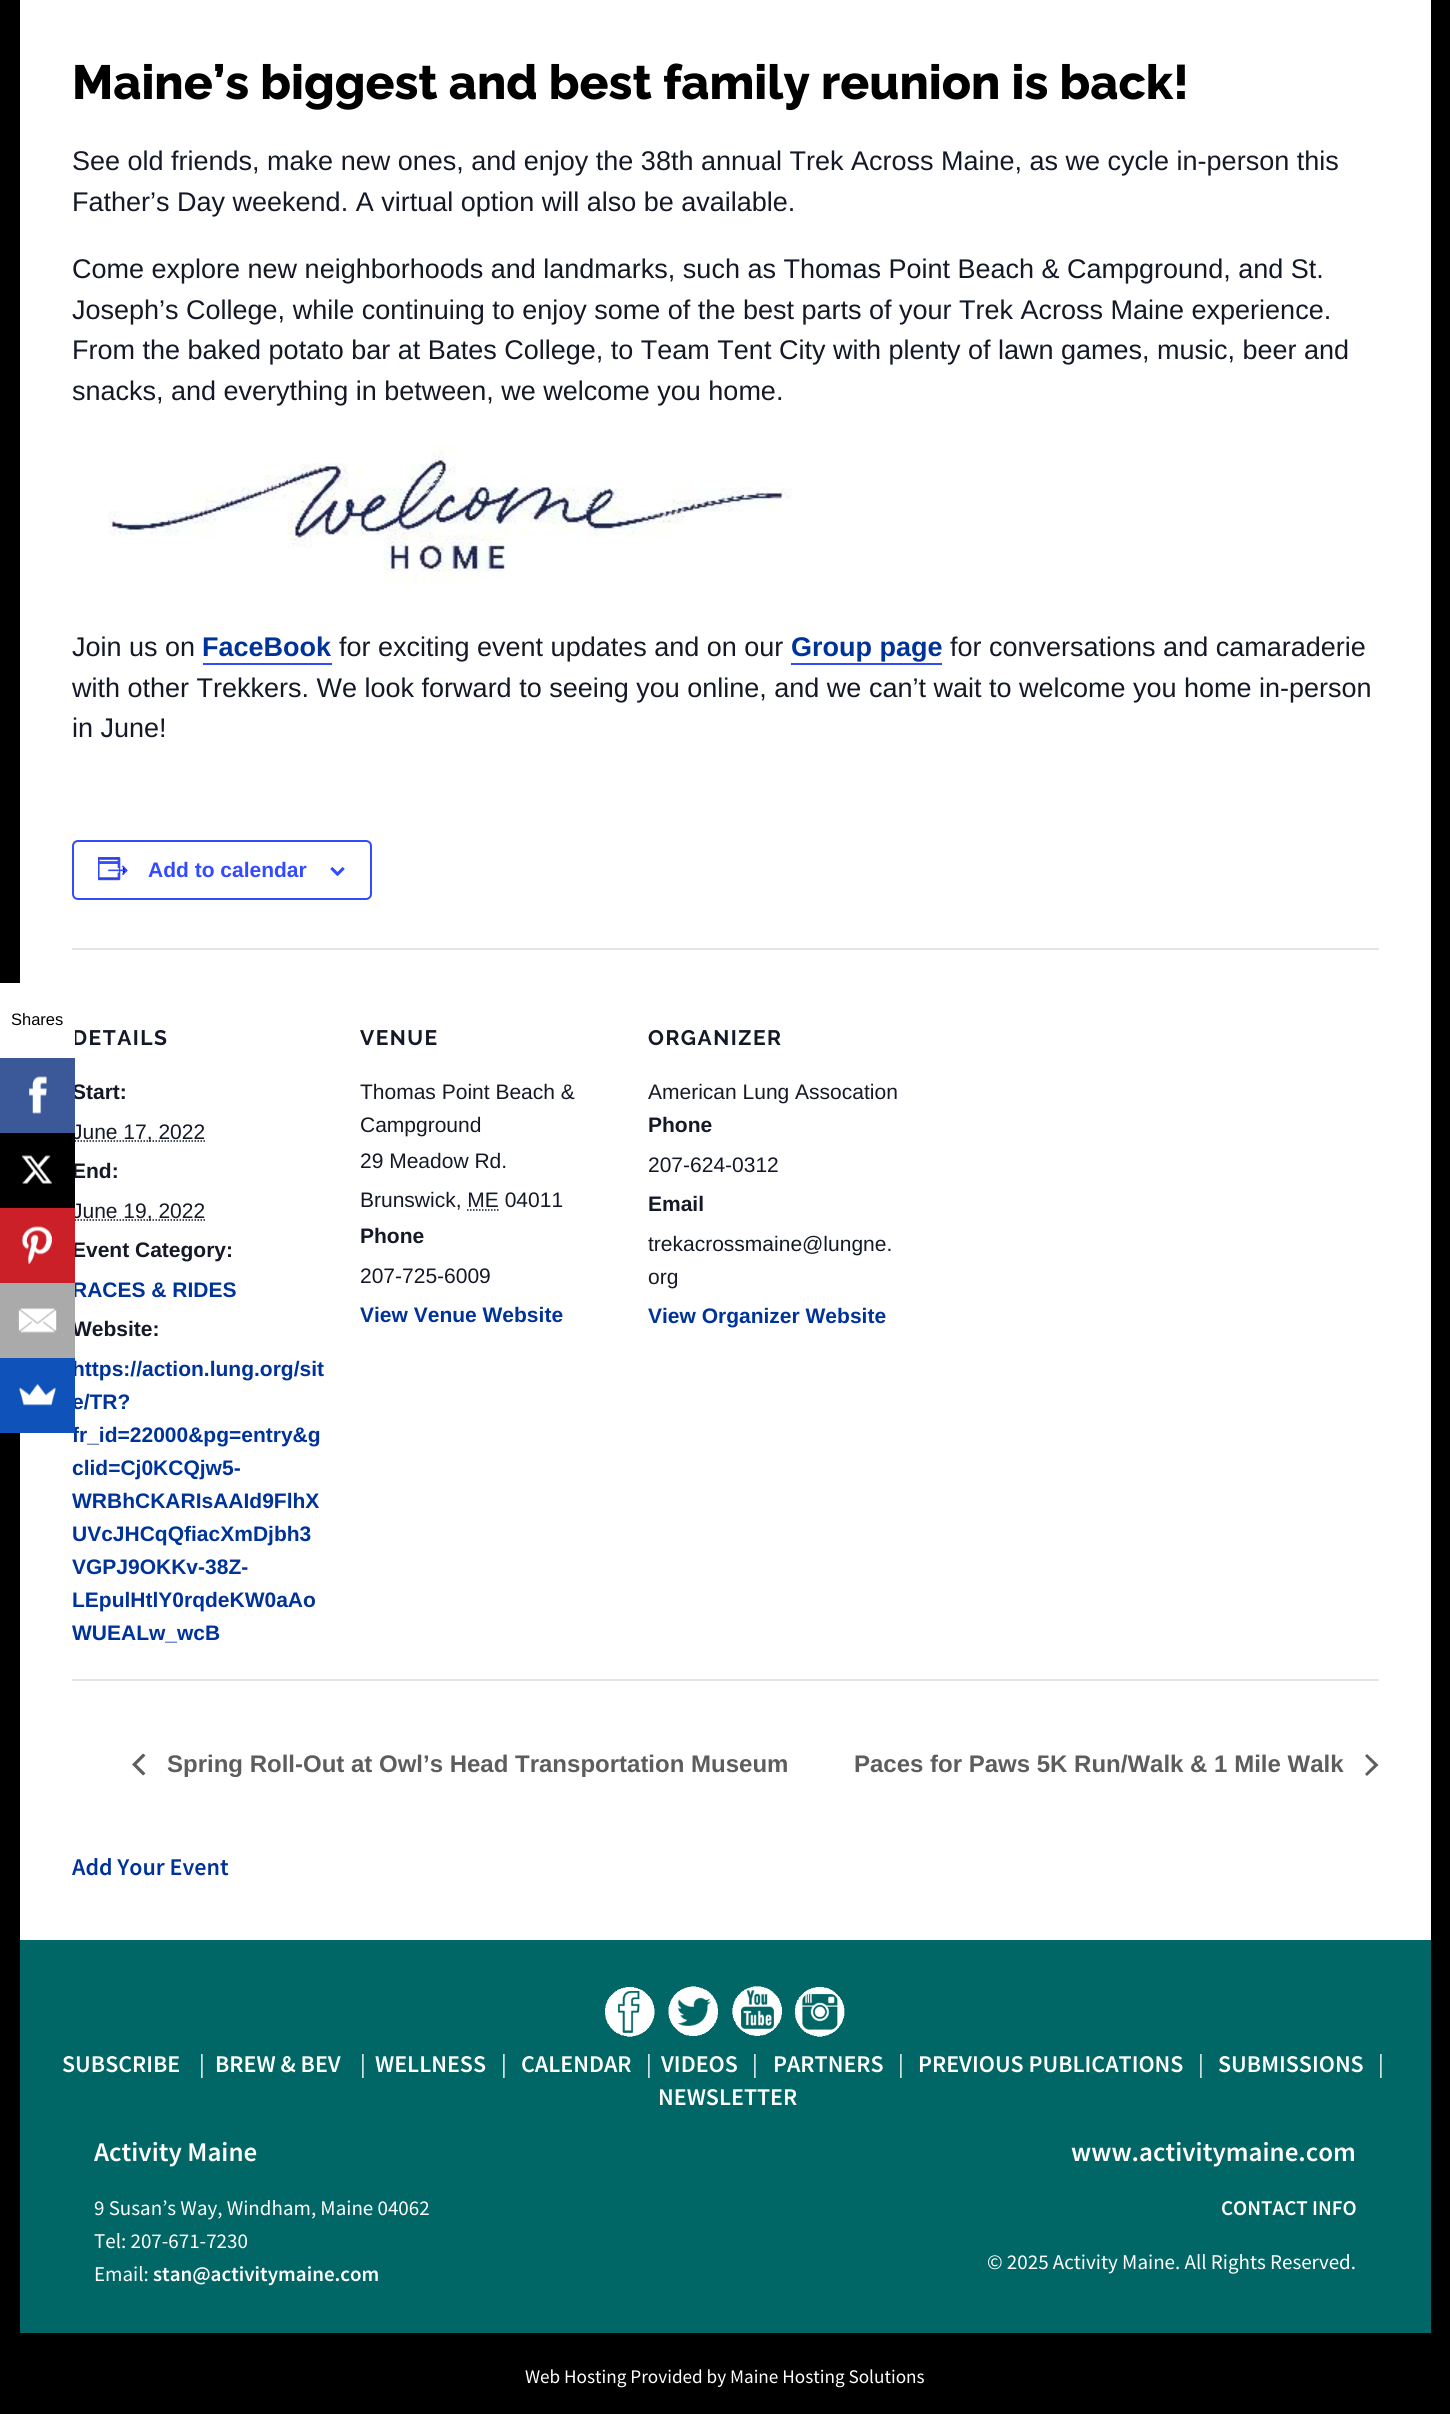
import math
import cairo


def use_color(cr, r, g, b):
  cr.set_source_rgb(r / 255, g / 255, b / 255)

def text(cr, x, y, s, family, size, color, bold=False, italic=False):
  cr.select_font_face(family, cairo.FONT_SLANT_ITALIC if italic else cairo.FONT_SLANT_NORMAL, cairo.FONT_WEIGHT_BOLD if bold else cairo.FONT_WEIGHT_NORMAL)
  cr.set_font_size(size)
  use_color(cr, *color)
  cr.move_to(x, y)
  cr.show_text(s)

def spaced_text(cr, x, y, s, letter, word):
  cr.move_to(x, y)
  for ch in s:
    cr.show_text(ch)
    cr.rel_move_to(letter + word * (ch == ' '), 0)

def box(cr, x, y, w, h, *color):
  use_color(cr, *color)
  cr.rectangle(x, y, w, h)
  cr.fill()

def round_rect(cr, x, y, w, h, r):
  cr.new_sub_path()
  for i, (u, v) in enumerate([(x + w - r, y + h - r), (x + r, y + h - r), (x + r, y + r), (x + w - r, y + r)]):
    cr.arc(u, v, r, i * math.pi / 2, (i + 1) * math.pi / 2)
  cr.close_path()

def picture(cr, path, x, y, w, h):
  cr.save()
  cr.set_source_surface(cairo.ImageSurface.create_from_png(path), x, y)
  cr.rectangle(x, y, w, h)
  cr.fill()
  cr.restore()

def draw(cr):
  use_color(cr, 0, 0, 0)
  cr.paint()
  box(cr, 20, 0, 1411, 1940, 255, 255, 255)
  picture(cr, "img_06.png", 108, 445, 684, 139)
  box(cr, 203, 663, 129, 2, 51, 74, 255)
  box(cr, 791, 663, 151, 2, 51, 74, 255)
  round_rect(cr, 73, 841, 298, 58, 5)
  cr.stroke()
  picture(cr, "img_07.png", 98, 857, 30, 24)
  picture(cr, "img_08.png", 330, 867, 15, 9)
  box(cr, 72, 948, 1307, 2, 228, 228, 228)
  cr.new_path()
  cr.move_to(71.5, 1141)
  cr.line_to(205, 1141)
  use_color(cr, 20, 24, 39)
  cr.set_line_width(1.5)
  cr.set_dash([1.5, 1.5])
  cr.stroke()
  cr.new_path()
  cr.move_to(71.5, 1220)
  cr.line_to(205, 1220)
  cr.stroke()
  cr.new_path()
  cr.move_to(467, 1210)
  cr.line_to(498.5, 1210)
  cr.stroke()
  box(cr, 72, 1679, 1307, 2, 228, 228, 228)
  use_color(cr, 93, 93, 93)
  cr.new_path()
  cr.move_to(145.5, 1773.5)
  cr.line_to(143, 1775.5)
  cr.line_to(132, 1764.5)
  cr.line_to(143, 1753.5)
  cr.line_to(145.5, 1755.5)
  cr.line_to(136.5, 1764.5)
  cr.close_path()
  cr.fill()
  cr.new_path()
  cr.move_to(1365, 1756)
  cr.line_to(1367, 1754)
  cr.line_to(1378.5, 1765)
  cr.line_to(1367, 1776)
  cr.line_to(1365, 1774)
  cr.line_to(1374, 1765)
  cr.close_path()
  cr.fill()
  box(cr, 20, 1940, 1411, 393, 0, 102, 102)
  picture(cr, "img_09.png", 605, 1987, 50, 50)
  picture(cr, "img_10.png", 668, 1986, 50, 50)
  picture(cr, "img_11.png", 732, 1986, 50, 50)
  picture(cr, "img_12.png", 794, 1987, 51, 50)
  text(cr, 72, 99, "Maine’s biggest and best family reunion is back!", "Raleway ExtraBold", 48, (0, 0, 0))
  text(cr, 72, 170, "See old friends, make new ones, and enjoy the 38th annual Trek Across Maine, as we cycle in-person this", "Liberation Sans", 27, (20, 24, 39))
  text(cr, 72, 211, "Father’s Day weekend. A virtual option will also be available.", "Liberation Sans", 27, (20, 24, 39))
  text(cr, 72, 278, "Come explore new neighborhoods and landmarks, such as Thomas Point Beach & Campground, and St.", "Liberation Sans", 27, (20, 24, 39))
  text(cr, 72, 319, "Joseph’s College, while continuing to enjoy some of the best parts of your Trek Across Maine experience.", "Liberation Sans", 27, (20, 24, 39))
  text(cr, 72, 359, "From the baked potato bar at Bates College, to Team Tent City with plenty of lawn games, music, beer and", "Liberation Sans", 27, (20, 24, 39))
  text(cr, 72, 400, "snacks, and everything in between, we welcome you home.", "Liberation Sans", 27, (20, 24, 39))
  text(cr, 72, 656, "Join us on", "Liberation Sans", 27, (20, 24, 39))
  text(cr, 202, 656, "FaceBook", "Liberation Sans", 27, (0, 51, 153), bold=True)
  text(cr, 339, 656, "for exciting event updates and on our", "Liberation Sans", 27, (20, 24, 39))
  text(cr, 791, 656, "Group page", "Liberation Sans", 27, (0, 51, 153), bold=True)
  text(cr, 950, 656, "for conversations and camaraderie", "Liberation Sans", 27, (20, 24, 39))
  text(cr, 72, 697, "with other Trekkers. We look forward to seeing you online, and we can’t wait to welcome you home in-person", "Liberation Sans", 27, (20, 24, 39))
  text(cr, 72, 737, "in June!", "Liberation Sans", 27, (20, 24, 39))
  text(cr, 148, 877, "Add to calendar", "Liberation Sans", 21, (51, 74, 255), bold=True)
  cr.select_font_face("Raleway", cairo.FONT_SLANT_NORMAL, cairo.FONT_WEIGHT_BOLD)
  use_color(cr, 20, 24, 39)
  spaced_text(cr, 72, 1045, "DETAILS", 1.5, 0)
  box(cr, 0, 983, 75, 75, 255, 255, 255)
  text(cr, 11, 1025, "Shares", "Liberation Sans", 16.5, (0, 0, 0))
  text(cr, 72, 1099, "Start:", "Liberation Sans", 21, (20, 24, 39), bold=True)
  text(cr, 72, 1139, "June 17, 2022", "Liberation Sans", 21, (20, 24, 39))
  box(cr, 0, 1058, 75, 75, 59, 89, 152)
  picture(cr, "img_01.png", 29, 1076, 18, 38)
  text(cr, 72, 1178, "End:", "Liberation Sans", 21, (20, 24, 39), bold=True)
  text(cr, 72, 1218, "June 19, 2022", "Liberation Sans", 21, (20, 24, 39))
  box(cr, 20, 1133, 55, 75, 0, 0, 0)
  picture(cr, "img_02.png", 21, 1155, 31, 29)
  text(cr, 72, 1257, "Event Category:", "Liberation Sans", 21, (20, 24, 39), bold=True)
  text(cr, 72, 1297, "RACES & RIDES", "Liberation Sans", 21, (0, 51, 153), bold=True)
  box(cr, 0, 1208, 75, 75, 203, 32, 39)
  picture(cr, "img_03.png", 22, 1226, 30, 39)
  text(cr, 72, 1336, "Website:", "Liberation Sans", 21, (20, 24, 39), bold=True)
  box(cr, 0, 1283, 75, 75, 170, 170, 170)
  picture(cr, "img_04.png", 18, 1308, 39, 25)
  text(cr, 72, 1376, "https://action.lung.org/sit", "Liberation Sans", 21, (0, 51, 153), bold=True)
  text(cr, 72, 1409, "e/TR?", "Liberation Sans", 21, (0, 51, 153), bold=True)
  text(cr, 72, 1442, "fr_id=22000&pg=entry&g", "Liberation Sans", 21, (0, 51, 153), bold=True)
  box(cr, 0, 1358, 75, 75, 15, 82, 186)
  picture(cr, "img_05.png", 19, 1384, 37, 22)
  text(cr, 72, 1475, "clid=Cj0KCQjw5-", "Liberation Sans", 21, (0, 51, 153), bold=True)
  text(cr, 72, 1508, "WRBhCKARIsAAId9FlhX", "Liberation Sans", 21, (0, 51, 153), bold=True)
  text(cr, 72, 1541, "UVcJHCqQfiacXmDjbh3", "Liberation Sans", 21, (0, 51, 153), bold=True)
  text(cr, 72, 1574, "VGPJ9OKKv-38Z-", "Liberation Sans", 21, (0, 51, 153), bold=True)
  text(cr, 72, 1607, "LEpulHtlY0rqdeKW0aAo", "Liberation Sans", 21, (0, 51, 153), bold=True)
  text(cr, 72, 1640, "WUEALw_wcB", "Liberation Sans", 21, (0, 51, 153), bold=True)
  cr.select_font_face("Raleway", cairo.FONT_SLANT_NORMAL, cairo.FONT_WEIGHT_BOLD)
  use_color(cr, 20, 24, 39)
  spaced_text(cr, 360, 1045, "VENUE", 1.5, 0)
  text(cr, 360, 1099, "Thomas Point Beach &", "Liberation Sans", 21, (20, 24, 39))
  text(cr, 360, 1132, "Campground", "Liberation Sans", 21, (20, 24, 39))
  text(cr, 360, 1168, "29 Meadow Rd.", "Liberation Sans", 21, (20, 24, 39))
  text(cr, 360, 1207, "Brunswick, ME 04011", "Liberation Sans", 21, (20, 24, 39))
  text(cr, 360, 1243, "Phone", "Liberation Sans", 21, (20, 24, 39), bold=True)
  text(cr, 360, 1283, "207-725-6009", "Liberation Sans", 21, (20, 24, 39))
  text(cr, 360, 1322, "View Venue Website", "Liberation Sans", 21, (0, 51, 153), bold=True)
  cr.select_font_face("Raleway", cairo.FONT_SLANT_NORMAL, cairo.FONT_WEIGHT_BOLD)
  use_color(cr, 20, 24, 39)
  spaced_text(cr, 648, 1045, "ORGANIZER", 1.5, 0)
  text(cr, 648, 1099, "American Lung Assocation", "Liberation Sans", 21, (20, 24, 39))
  text(cr, 648, 1132, "Phone", "Liberation Sans", 21, (20, 24, 39), bold=True)
  text(cr, 648, 1172, "207-624-0312", "Liberation Sans", 21, (20, 24, 39))
  text(cr, 648, 1211, "Email", "Liberation Sans", 21, (20, 24, 39), bold=True)
  text(cr, 648, 1251, "trekacrossmaine@lungne.", "Liberation Sans", 21, (20, 24, 39))
  text(cr, 648, 1284, "org", "Liberation Sans", 21, (20, 24, 39))
  text(cr, 648, 1323, "View Organizer Website", "Liberation Sans", 21, (0, 51, 153), bold=True)
  text(cr, 167, 1772, "Spring Roll-Out at Owl’s Head Transportation Museum", "Liberation Sans", 24, (93, 93, 93), bold=True)
  text(cr, 854, 1772, "Paces for Paws 5K Run/Walk & 1 Mile Walk", "Liberation Sans", 24, (93, 93, 93), bold=True)
  text(cr, 72, 1875, "Add Your Event", "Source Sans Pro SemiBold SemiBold", 24, (0, 51, 153))
  text(cr, 62, 2072, "SUBSCRIBE", "Source Sans Pro SemiBold SemiBold", 24, (255, 255, 255))
  text(cr, 199, 2072, "|", "Source Sans Pro", 24, (255, 255, 255))
  text(cr, 215, 2072, "BREW & BEV", "Source Sans Pro SemiBold SemiBold", 24, (255, 255, 255))
  text(cr, 360, 2072, "|", "Source Sans Pro", 24, (255, 255, 255))
  text(cr, 375, 2072, "WELLNESS", "Source Sans Pro SemiBold SemiBold", 24, (255, 255, 255))
  text(cr, 501, 2072, "|", "Source Sans Pro", 24, (255, 255, 255))
  text(cr, 521, 2072, "CALENDAR", "Source Sans Pro SemiBold SemiBold", 24, (255, 255, 255))
  text(cr, 646, 2072, "|", "Source Sans Pro", 24, (255, 255, 255))
  text(cr, 661, 2072, "VIDEOS", "Source Sans Pro SemiBold SemiBold", 24, (255, 255, 255))
  text(cr, 752, 2072, "|", "Source Sans Pro", 24, (255, 255, 255))
  text(cr, 773, 2072, "PARTNERS", "Source Sans Pro SemiBold SemiBold", 24, (255, 255, 255))
  text(cr, 898, 2072, "|", "Source Sans Pro", 24, (255, 255, 255))
  text(cr, 918, 2072, "PREVIOUS PUBLICATIONS", "Source Sans Pro SemiBold SemiBold", 24, (255, 255, 255))
  text(cr, 1198, 2072, "|", "Source Sans Pro", 24, (255, 255, 255))
  text(cr, 1218, 2072, "SUBMISSIONS", "Source Sans Pro SemiBold SemiBold", 24, (255, 255, 255))
  text(cr, 1378, 2072, "|", "Source Sans Pro", 24, (255, 255, 255))
  text(cr, 658, 2105, "NEWSLETTER", "Source Sans Pro SemiBold SemiBold", 24, (255, 255, 255))
  text(cr, 94, 2161, "Activity Maine", "Source Sans Pro SemiBold SemiBold", 27, (255, 255, 255))
  text(cr, 94, 2215, "9 Susan’s Way, Windham, Maine 04062", "Source Sans Pro", 21, (255, 255, 255))
  text(cr, 94, 2248, "Tel: 207-671-7230", "Source Sans Pro", 21, (255, 255, 255))
  text(cr, 94, 2281, "Email:", "Source Sans Pro", 21, (255, 255, 255))
  text(cr, 153, 2281, "stan@activitymaine.com", "Source Sans Pro SemiBold SemiBold", 21, (255, 255, 255))
  text(cr, 1071, 2161, "www.activitymaine.com", "Source Sans Pro SemiBold SemiBold", 27, (255, 255, 255))
  text(cr, 1221, 2215, "CONTACT INFO", "Source Sans Pro SemiBold SemiBold", 21, (255, 255, 255))
  text(cr, 987, 2269, "© 2025 Activity Maine. All Rights Reserved.", "Source Sans Pro", 21, (255, 255, 255))
  text(cr, 525, 2383, "Web Hosting Provided by Maine Hosting Solutions", "Source Sans Pro", 19.2, (255, 255, 255))


surface = cairo.ImageSurface(cairo.FORMAT_RGB24, 1450, 2414)
cr = cairo.Context(surface)
options = cairo.FontOptions()
options.set_hint_metrics(cairo.HINT_METRICS_OFF)
options.set_hint_style(cairo.HINT_STYLE_NONE)
cr.set_font_options(options)
cr.set_miter_limit(4)
draw(cr)
surface.write_to_png("out.png")
